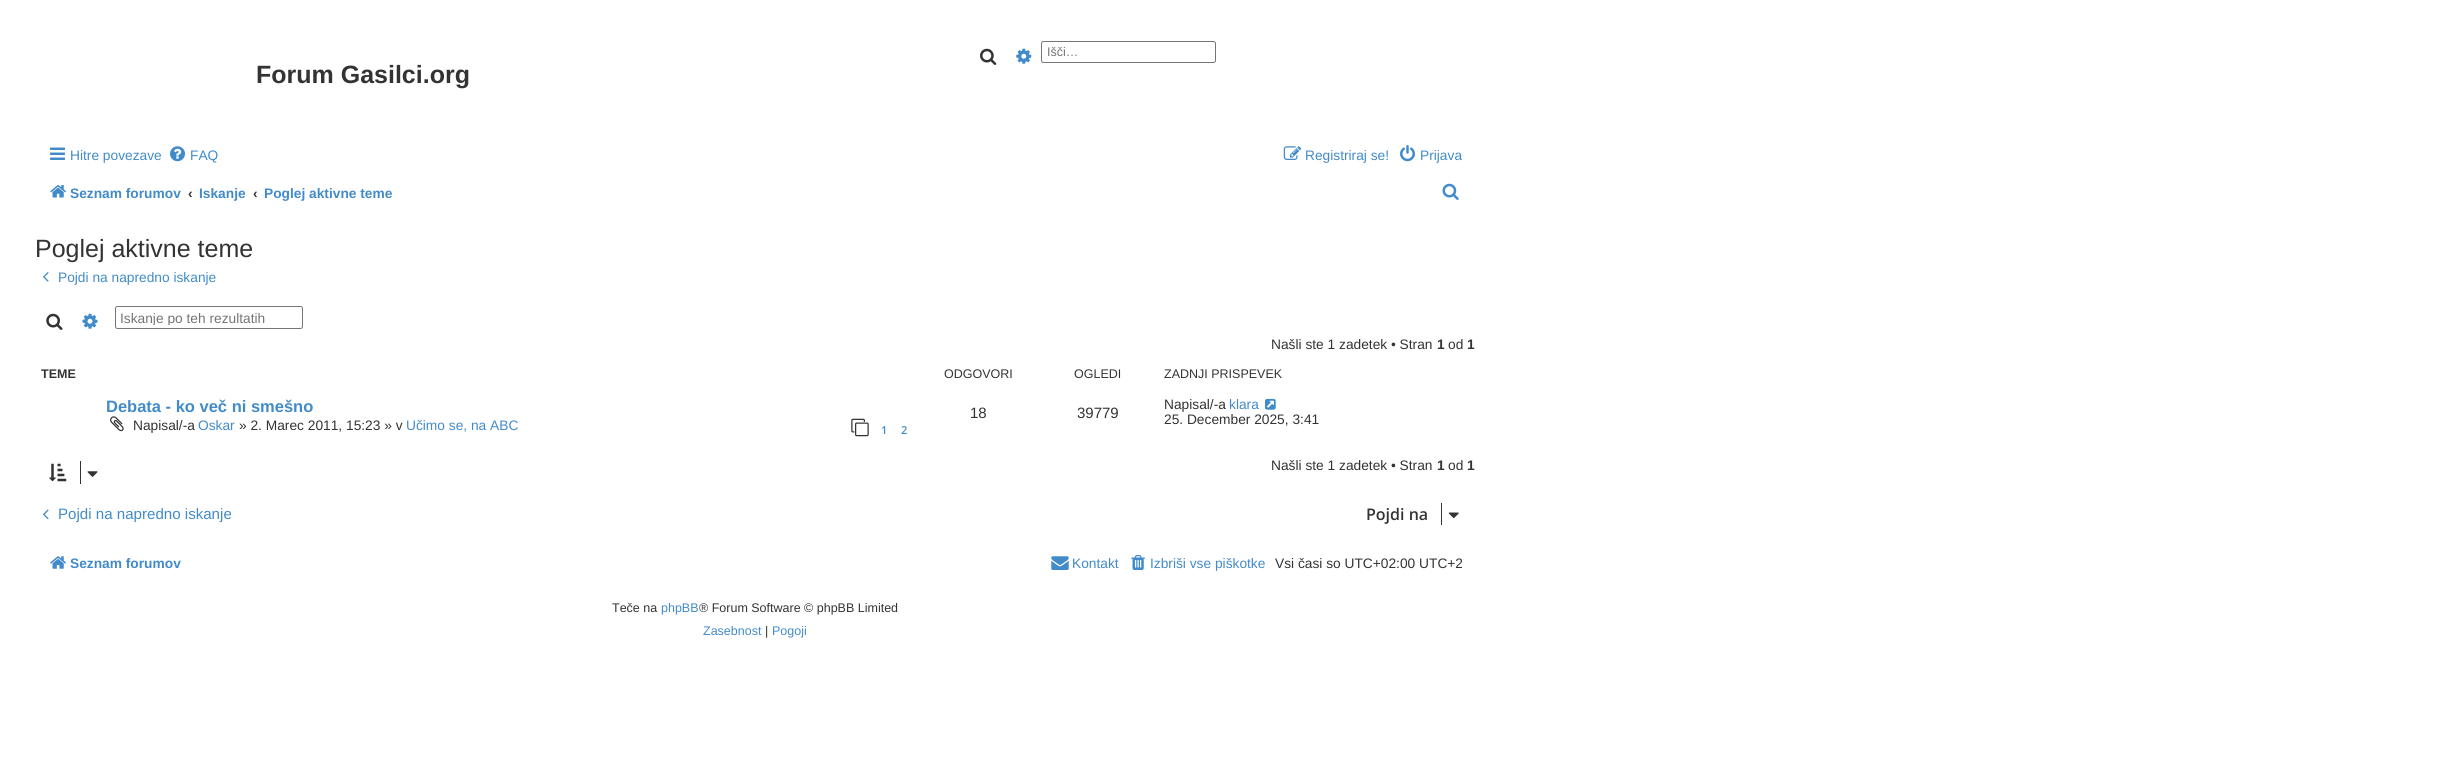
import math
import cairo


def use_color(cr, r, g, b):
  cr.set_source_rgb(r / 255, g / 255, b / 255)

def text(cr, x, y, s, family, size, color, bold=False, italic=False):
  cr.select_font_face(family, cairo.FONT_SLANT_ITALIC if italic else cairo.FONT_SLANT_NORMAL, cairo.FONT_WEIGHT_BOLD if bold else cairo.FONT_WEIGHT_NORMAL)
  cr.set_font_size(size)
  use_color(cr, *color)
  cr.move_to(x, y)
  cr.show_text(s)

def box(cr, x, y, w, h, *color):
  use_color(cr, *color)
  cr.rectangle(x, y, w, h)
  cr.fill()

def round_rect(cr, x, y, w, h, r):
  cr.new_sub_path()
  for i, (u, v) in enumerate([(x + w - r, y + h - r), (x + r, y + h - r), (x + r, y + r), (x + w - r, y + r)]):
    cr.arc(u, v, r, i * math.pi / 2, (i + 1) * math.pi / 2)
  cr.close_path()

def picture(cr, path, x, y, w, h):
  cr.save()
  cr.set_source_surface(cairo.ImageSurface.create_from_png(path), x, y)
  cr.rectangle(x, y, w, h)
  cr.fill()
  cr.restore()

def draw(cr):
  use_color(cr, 255, 255, 255)
  cr.paint()
  picture(cr, "img_01.png", 980, 48, 17, 17)
  picture(cr, "img_02.png", 1016, 48, 16, 16)
  round_rect(cr, 1041.5, 41.5, 174, 21, 2)
  use_color(cr, 118, 118, 118)
  cr.set_line_width(1)
  cr.stroke()
  picture(cr, "img_03.png", 50, 147, 15, 13)
  picture(cr, "img_04.png", 170, 146, 15, 16)
  picture(cr, "img_05.png", 1283, 146, 19, 14)
  picture(cr, "img_06.png", 1400, 145, 15, 17)
  picture(cr, "img_07.png", 50, 185, 16, 13)
  picture(cr, "img_08.png", 1442, 183, 17, 17)
  picture(cr, "img_09.png", 43, 272, 6, 10)
  picture(cr, "img_10.png", 46, 313, 17, 17)
  picture(cr, "img_11.png", 82, 313, 16, 16)
  round_rect(cr, 115.5, 306.5, 187, 22, 2)
  cr.stroke()
  picture(cr, "img_12.png", 110, 416, 14, 16)
  picture(cr, "img_13.png", 851, 418, 18, 19)
  picture(cr, "img_14.png", 1265, 398, 11, 12)
  picture(cr, "img_15.png", 49, 463, 18, 19)
  box(cr, 80, 461, 1, 23, 51, 51, 51)
  picture(cr, "img_16.png", 87, 471, 11, 6)
  picture(cr, "img_17.png", 43, 509, 6, 11)
  box(cr, 1441, 503, 1, 22, 51, 51, 51)
  picture(cr, "img_18.png", 1448, 512, 11, 7)
  picture(cr, "img_19.png", 50, 556, 16, 13)
  picture(cr, "img_20.png", 1051, 556, 18, 14)
  picture(cr, "img_21.png", 1131, 555, 14, 15)
  text(cr, 1047, 56, "Išči…", "Liberation Sans", 12.5, (117, 117, 117))
  text(cr, 256, 83, "Forum Gasilci.org", "Liberation Sans", 25, (51, 51, 51), bold=True)
  text(cr, 70, 160, "Hitre povezave", "Liberation Sans", 13.75, (66, 139, 202))
  text(cr, 190, 160, "FAQ", "Liberation Sans", 13.75, (66, 139, 202))
  text(cr, 1305, 160, "Registriraj se!", "Liberation Sans", 13.75, (66, 139, 202))
  text(cr, 1420, 160, "Prijava", "Liberation Sans", 13.75, (66, 139, 202))
  text(cr, 70, 198, "Seznam forumov", "Liberation Sans", 13.75, (66, 139, 202), bold=True)
  text(cr, 188, 198, "‹", "Liberation Sans", 13.75, (51, 51, 51), bold=True)
  text(cr, 199, 198, "Iskanje", "Liberation Sans", 13.75, (66, 139, 202), bold=True)
  text(cr, 253, 198, "‹", "Liberation Sans", 13.75, (51, 51, 51), bold=True)
  text(cr, 264, 198, "Poglej aktivne teme", "Liberation Sans", 13.75, (66, 139, 202), bold=True)
  text(cr, 35, 257, "Poglej aktivne teme", "Liberation Sans", 25, (51, 51, 51))
  text(cr, 58, 282, "Pojdi na napredno iskanje", "Liberation Sans", 13.75, (66, 139, 202))
  cr.save()
  cr.rectangle(120, 310, 173, 15)
  cr.clip()
  text(cr, 120, 323, "Iskanje po teh rezultatih", "Liberation Sans", 13.75, (117, 117, 117))
  cr.restore()
  text(cr, 1271, 349, "Našli ste 1 zadetek • Stran", "Liberation Sans", 13.75, (51, 51, 51))
  text(cr, 1437, 349, "1", "Liberation Sans", 13.75, (51, 51, 51), bold=True)
  text(cr, 1448, 349, "od", "Liberation Sans", 13.75, (51, 51, 51))
  text(cr, 1467, 349, "1", "Liberation Sans", 13.75, (51, 51, 51), bold=True)
  text(cr, 41, 378, "TEME", "Liberation Sans", 12.5, (51, 51, 51), bold=True)
  text(cr, 944, 378, "ODGOVORI", "Liberation Sans", 12.5, (51, 51, 51))
  text(cr, 1074, 378, "OGLEDI", "Liberation Sans", 12.5, (51, 51, 51))
  text(cr, 1164, 378, "ZADNJI PRISPEVEK", "Liberation Sans", 12.5, (51, 51, 51))
  text(cr, 106, 412, "Debata - ko več ni smešno", "Liberation Sans", 16.5, (66, 139, 202), bold=True)
  text(cr, 133, 430, "Napisal/-a", "Liberation Sans", 13.75, (51, 51, 51))
  text(cr, 198, 430, "Oskar", "Liberation Sans", 13.75, (66, 139, 202))
  text(cr, 239, 430, "» 2. Marec 2011, 15:23 » v", "Liberation Sans", 13.75, (51, 51, 51))
  text(cr, 406, 430, "Učimo se, na ABC", "Liberation Sans", 13.75, (66, 139, 202))
  text(cr, 881, 434, "1", "Open Sans SemiBold", 11, (66, 139, 202))
  text(cr, 901, 434, "2", "Open Sans SemiBold", 11, (66, 139, 202))
  text(cr, 970, 418, "18", "Liberation Sans", 15, (51, 51, 51))
  text(cr, 1077, 418, "39779", "Liberation Sans", 15, (51, 51, 51))
  text(cr, 1164, 409, "Napisal/-a", "Liberation Sans", 13.75, (51, 51, 51))
  text(cr, 1229, 409, "klara", "Liberation Sans", 13.75, (66, 139, 202))
  text(cr, 1164, 424, "25. December 2025, 3:41", "Liberation Sans", 13.75, (51, 51, 51))
  text(cr, 1271, 470, "Našli ste 1 zadetek • Stran", "Liberation Sans", 13.75, (51, 51, 51))
  text(cr, 1437, 470, "1", "Liberation Sans", 13.75, (51, 51, 51), bold=True)
  text(cr, 1448, 470, "od", "Liberation Sans", 13.75, (51, 51, 51))
  text(cr, 1467, 470, "1", "Liberation Sans", 13.75, (51, 51, 51), bold=True)
  text(cr, 58, 519, "Pojdi na napredno iskanje", "Liberation Sans", 15.1, (66, 139, 202))
  text(cr, 1366, 520, "Pojdi na", "Open Sans SemiBold", 16, (51, 51, 51))
  text(cr, 70, 568, "Seznam forumov", "Liberation Sans", 13.75, (66, 139, 202), bold=True)
  text(cr, 1072, 568, "Kontakt", "Liberation Sans", 13.75, (66, 139, 202))
  text(cr, 1150, 568, "Izbriši vse piškotke", "Liberation Sans", 13.75, (66, 139, 202))
  text(cr, 1275, 568, "Vsi časi so UTC+02:00 UTC+2", "Liberation Sans", 13.75, (51, 51, 51))
  text(cr, 612, 612, "Teče na", "Liberation Sans", 12.5, (51, 51, 51))
  text(cr, 661, 612, "phpBB", "Liberation Sans", 12.5, (66, 139, 202))
  text(cr, 699, 612, "® Forum Software © phpBB Limited", "Liberation Sans", 12.5, (51, 51, 51))
  text(cr, 703, 635, "Zasebnost", "Liberation Sans", 12.5, (66, 139, 202))
  text(cr, 765, 635, "|", "Liberation Sans", 12.5, (51, 51, 51))
  text(cr, 772, 635, "Pogoji", "Liberation Sans", 12.5, (66, 139, 202))


surface = cairo.ImageSurface(cairo.FORMAT_RGB24, 2455, 770)
cr = cairo.Context(surface)
options = cairo.FontOptions()
options.set_hint_metrics(cairo.HINT_METRICS_OFF)
options.set_hint_style(cairo.HINT_STYLE_NONE)
cr.set_font_options(options)
cr.set_miter_limit(4)
draw(cr)
surface.write_to_png("out.png")
